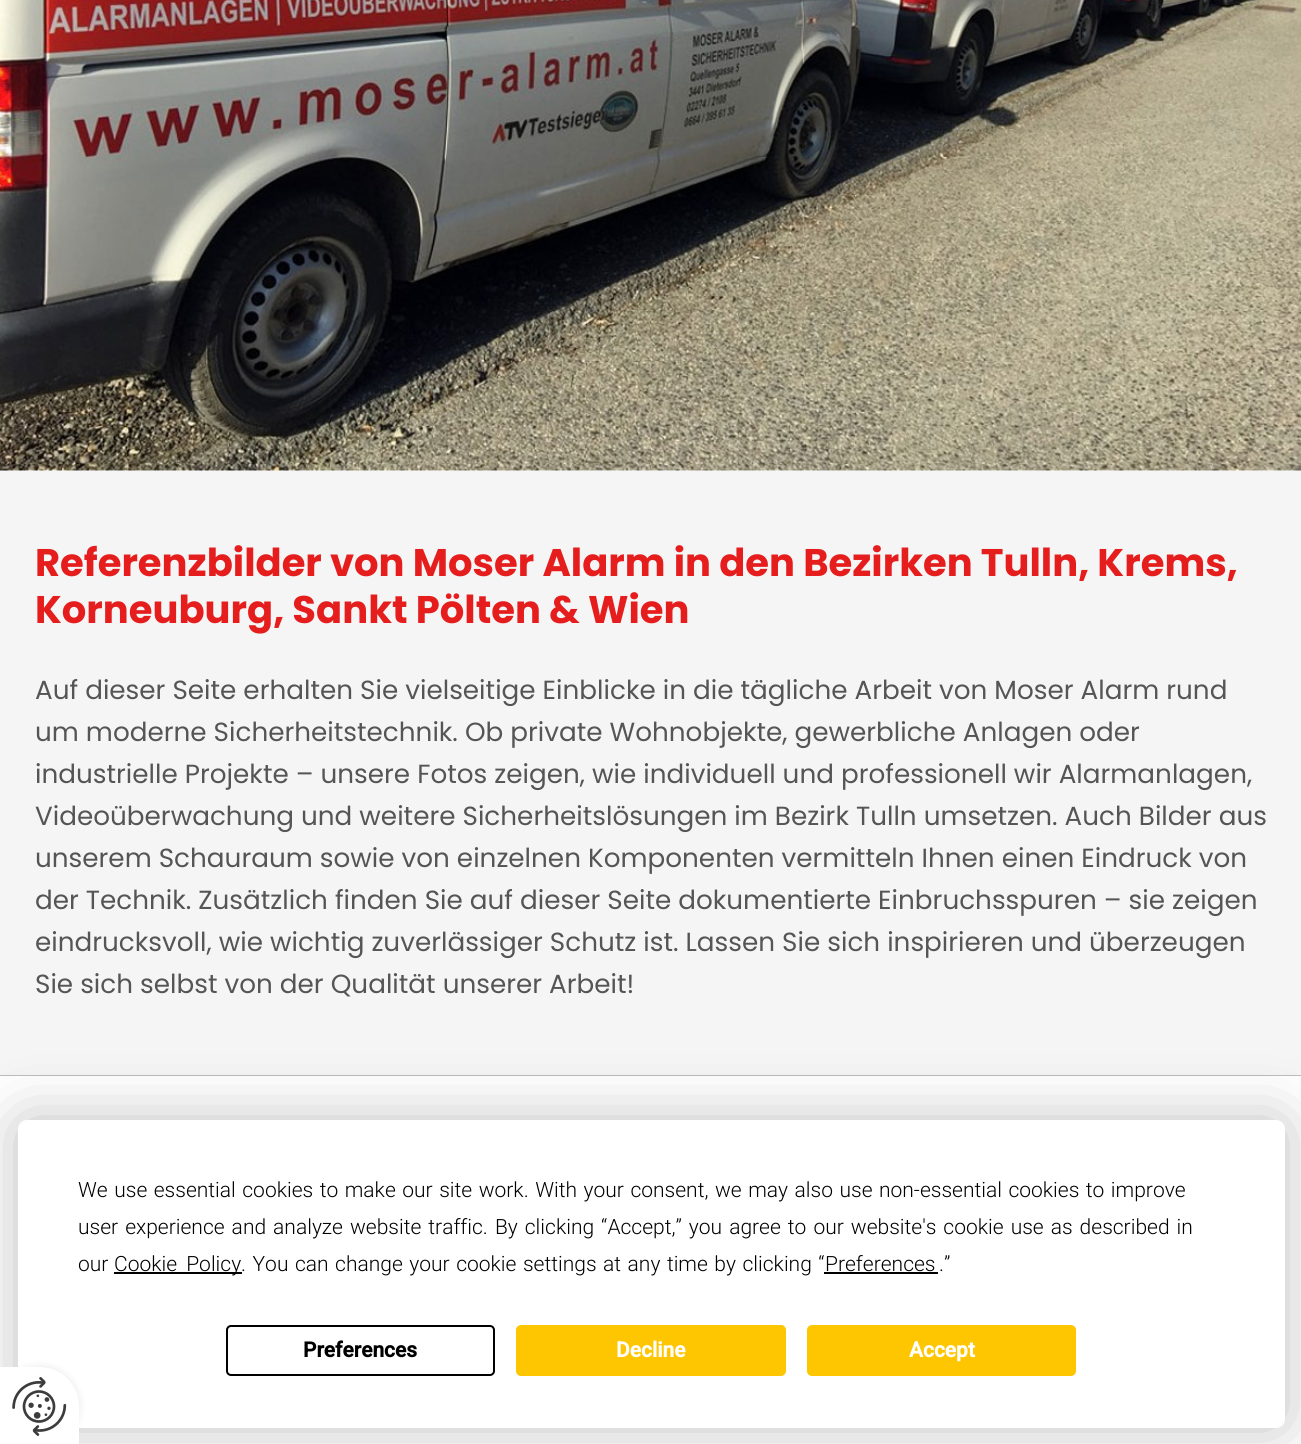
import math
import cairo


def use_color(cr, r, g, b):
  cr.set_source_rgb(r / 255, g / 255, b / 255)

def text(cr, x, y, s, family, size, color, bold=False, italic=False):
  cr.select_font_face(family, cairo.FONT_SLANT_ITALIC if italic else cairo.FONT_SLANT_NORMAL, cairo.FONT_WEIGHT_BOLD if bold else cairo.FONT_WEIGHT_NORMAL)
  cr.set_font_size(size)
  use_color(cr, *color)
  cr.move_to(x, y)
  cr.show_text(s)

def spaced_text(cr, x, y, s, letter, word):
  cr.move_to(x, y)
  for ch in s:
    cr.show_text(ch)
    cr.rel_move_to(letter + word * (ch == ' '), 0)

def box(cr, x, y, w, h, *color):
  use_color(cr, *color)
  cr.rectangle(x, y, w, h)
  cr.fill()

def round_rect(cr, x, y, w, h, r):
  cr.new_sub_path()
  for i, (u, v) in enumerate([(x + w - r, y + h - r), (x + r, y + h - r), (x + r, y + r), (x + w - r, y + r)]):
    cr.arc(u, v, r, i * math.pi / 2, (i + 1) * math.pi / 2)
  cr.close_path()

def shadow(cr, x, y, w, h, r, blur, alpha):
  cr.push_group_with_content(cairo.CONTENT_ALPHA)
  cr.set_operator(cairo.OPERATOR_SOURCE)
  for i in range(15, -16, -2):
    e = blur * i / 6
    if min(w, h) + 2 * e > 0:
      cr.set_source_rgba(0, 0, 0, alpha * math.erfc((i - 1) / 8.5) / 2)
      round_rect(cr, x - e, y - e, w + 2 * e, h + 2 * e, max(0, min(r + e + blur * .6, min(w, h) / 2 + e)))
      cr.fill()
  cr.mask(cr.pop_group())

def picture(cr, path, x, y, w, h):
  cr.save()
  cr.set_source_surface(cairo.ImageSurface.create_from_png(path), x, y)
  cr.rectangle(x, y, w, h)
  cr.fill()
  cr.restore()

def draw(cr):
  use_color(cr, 255, 255, 255)
  cr.paint()
  box(cr, 0, 1075, 1301, 1, 188, 188, 188)
  picture(cr, "img_01.png", 0, 0, 1301, 471)
  box(cr, 0, 471, 1301, 604, 245, 245, 245)
  use_color(cr, 0, 0, 0)
  shadow(cr, 18, 1120, 1267, 308, 9, 30.5, 0.25)
  use_color(cr, 255, 255, 255)
  round_rect(cr, 18, 1120, 1267, 308, 9)
  cr.fill()
  box(cr, 114, 1272, 128, 2, 0, 0, 0)
  box(cr, 824, 1272, 114, 2, 0, 0, 0)
  round_rect(cr, 227, 1326, 267, 49, 4)
  cr.stroke()
  use_color(cr, 254, 198, 0)
  round_rect(cr, 517, 1326, 268, 49, 4)
  cr.fill_preserve()
  cr.stroke()
  round_rect(cr, 808, 1326, 267, 49, 4)
  cr.fill_preserve()
  cr.stroke()
  use_color(cr, 0, 0, 0)
  shadow(cr, 0, 1367, 79, 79, 39.5, 4, 0.1)
  use_color(cr, 255, 255, 255)
  cr.new_path()
  cr.move_to(0, 1367)
  cr.line_to(39.5, 1367)
  cr.curve_to(61.5, 1367, 79, 1384.5, 79, 1406.5)
  cr.line_to(79, 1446)
  cr.line_to(0, 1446)
  cr.close_path()
  cr.fill()
  picture(cr, "img_02.png", 12, 1377, 55, 59)
  text(cr, 35, 576, "Referenzbilder von Moser Alarm in den Bezirken Tulln, Krems,", "Poppins", 38.5, (229, 29, 29), bold=True)
  text(cr, 35, 623, "Korneuburg, Sankt Pölten & Wien", "Poppins", 38.5, (229, 29, 29), bold=True)
  text(cr, 35, 699, "Auf dieser Seite erhalten Sie vielseitige Einblicke in die tägliche Arbeit von Moser Alarm rund", "Poppins", 26.25, (85, 85, 85))
  text(cr, 35, 741, "um moderne Sicherheitstechnik. Ob private Wohnobjekte, gewerbliche Anlagen oder", "Poppins", 26.25, (85, 85, 85))
  text(cr, 35, 783, "industrielle Projekte – unsere Fotos zeigen, wie individuell und professionell wir Alarmanlagen,", "Poppins", 26.25, (85, 85, 85))
  text(cr, 35, 825, "Videoüberwachung und weitere Sicherheitslösungen im Bezirk Tulln umsetzen. Auch Bilder aus", "Poppins", 26.25, (85, 85, 85))
  text(cr, 35, 867, "unserem Schauraum sowie von einzelnen Komponenten vermitteln Ihnen einen Eindruck von", "Poppins", 26.25, (85, 85, 85))
  text(cr, 35, 909, "der Technik. Zusätzlich finden Sie auf dieser Seite dokumentierte Einbruchsspuren – sie zeigen", "Poppins", 26.25, (85, 85, 85))
  text(cr, 35, 951, "eindrucksvoll, wie wichtig zuverlässiger Schutz ist. Lassen Sie sich inspirieren und überzeugen", "Poppins", 26.25, (85, 85, 85))
  text(cr, 35, 993, "Sie sich selbst von der Qualität unserer Arbeit!", "Poppins", 26.25, (85, 85, 85))
  cr.select_font_face("Roboto Light")
  cr.set_font_size(21)
  use_color(cr, 0, 0, 0)
  spaced_text(cr, 78, 1197, "We use essential cookies to make our site work. With your consent, we may also use non-essential cookies to improve", 0, 1.4)
  spaced_text(cr, 78, 1234, "user experience and analyze website traffic. By clicking “Accept,” you agree to our website's cookie use as described in", 0, 1.9)
  text(cr, 78, 1271, "our", "Roboto Light", 21, (0, 0, 0))
  spaced_text(cr, 114, 1271, "Cookie Policy", 0, 4)
  spaced_text(cr, 241, 1271, ". You can change your cookie settings at any time by clicking “", 0, 1.4)
  text(cr, 825, 1271, "Preferences", "Roboto Light", 21, (0, 0, 0))
  text(cr, 939, 1271, ".”", "Roboto Light", 21, (0, 0, 0))
  text(cr, 303, 1357, "Preferences", "Roboto", 21, (0, 0, 0), bold=True)
  text(cr, 616, 1357, "Decline", "Roboto", 21, (255, 255, 255), bold=True)
  text(cr, 909, 1357, "Accept", "Roboto", 21, (255, 255, 255), bold=True)


surface = cairo.ImageSurface(cairo.FORMAT_RGB24, 1301, 1444)
cr = cairo.Context(surface)
options = cairo.FontOptions()
options.set_hint_metrics(cairo.HINT_METRICS_OFF)
options.set_hint_style(cairo.HINT_STYLE_NONE)
cr.set_font_options(options)
cr.set_miter_limit(4)
draw(cr)
surface.write_to_png("out.png")
